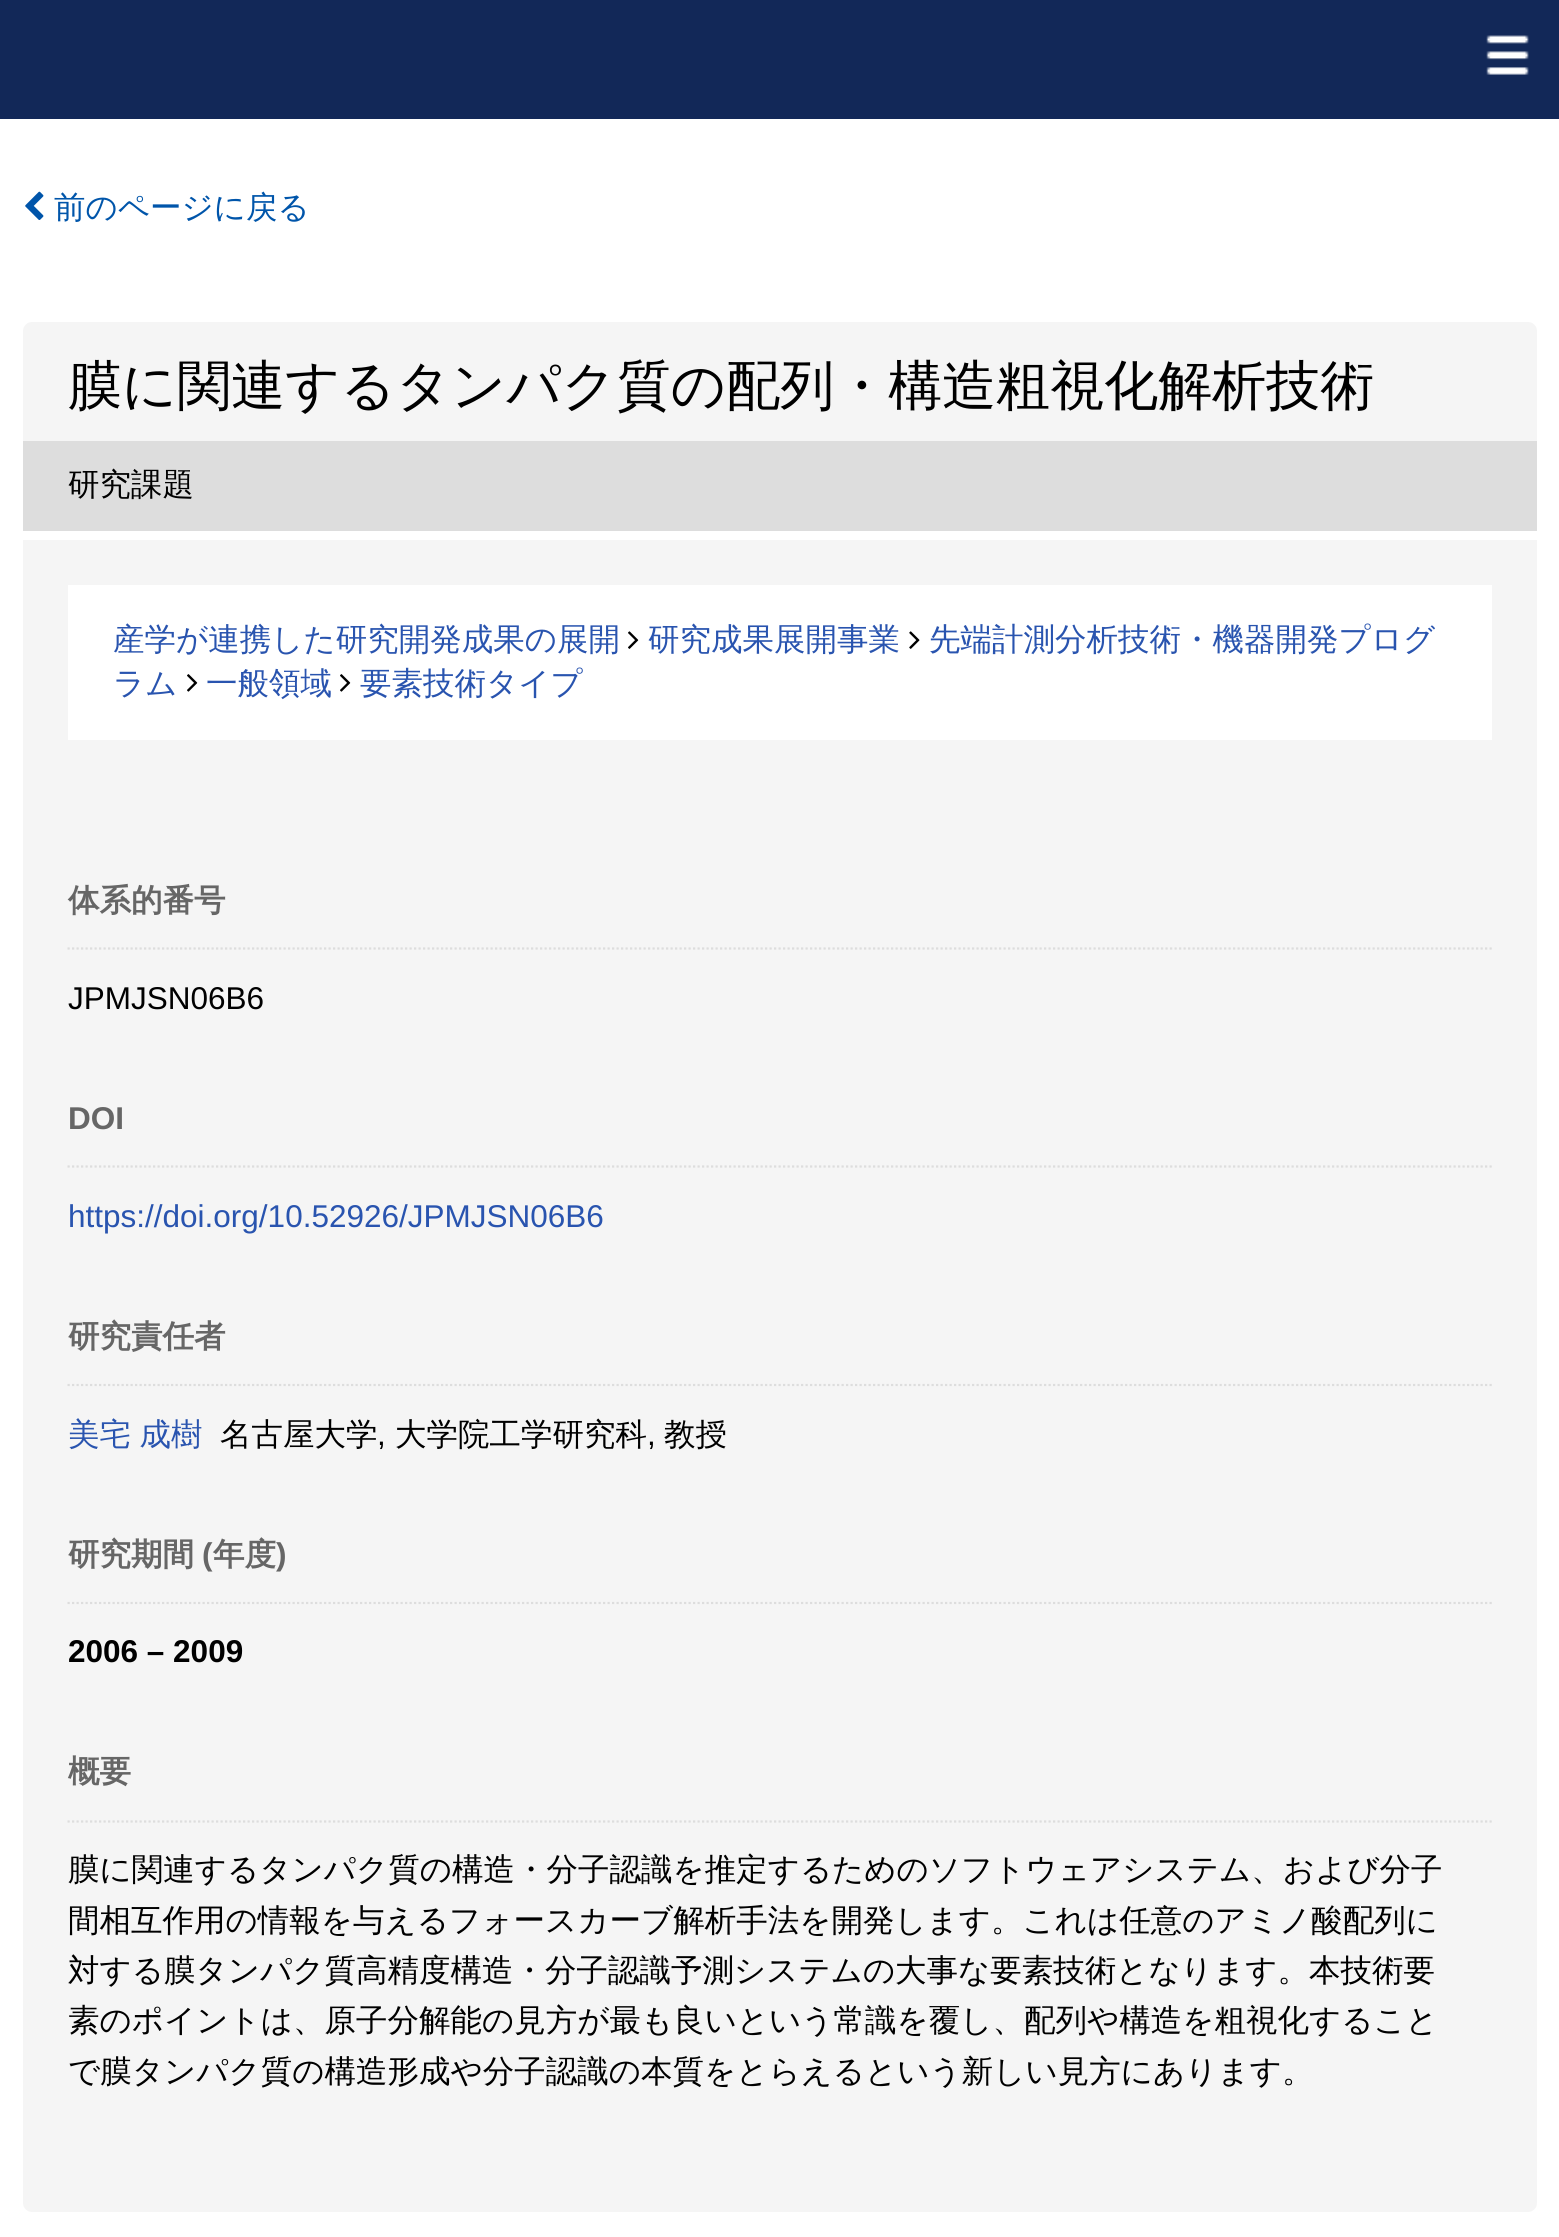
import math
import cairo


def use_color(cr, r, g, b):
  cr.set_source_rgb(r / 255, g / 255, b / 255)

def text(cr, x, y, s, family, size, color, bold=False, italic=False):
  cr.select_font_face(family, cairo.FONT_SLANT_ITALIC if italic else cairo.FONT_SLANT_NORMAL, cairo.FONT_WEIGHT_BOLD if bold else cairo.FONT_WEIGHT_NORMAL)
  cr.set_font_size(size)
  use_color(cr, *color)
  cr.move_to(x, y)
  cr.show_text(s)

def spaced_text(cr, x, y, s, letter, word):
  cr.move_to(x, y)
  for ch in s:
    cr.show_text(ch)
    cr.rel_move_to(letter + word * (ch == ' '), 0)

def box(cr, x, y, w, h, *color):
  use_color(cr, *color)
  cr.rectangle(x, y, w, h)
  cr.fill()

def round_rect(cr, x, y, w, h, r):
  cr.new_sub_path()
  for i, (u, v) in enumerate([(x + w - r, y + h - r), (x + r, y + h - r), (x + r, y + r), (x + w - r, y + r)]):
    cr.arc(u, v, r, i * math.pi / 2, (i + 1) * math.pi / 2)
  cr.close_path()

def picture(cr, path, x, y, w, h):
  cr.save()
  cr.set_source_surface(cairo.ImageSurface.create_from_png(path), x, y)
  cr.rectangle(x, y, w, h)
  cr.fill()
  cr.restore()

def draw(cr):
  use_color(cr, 255, 255, 255)
  cr.paint()
  box(cr, 0, 0, 1559, 119, 18, 40, 88)
  picture(cr, "img_01.png", 1486, 35, 43, 40)
  picture(cr, "img_02.png", 25, 191, 19, 29)
  use_color(cr, 245, 245, 245)
  round_rect(cr, 23, 322, 1514, 1890, 9)
  cr.fill()
  box(cr, 23, 441, 1514, 90, 221, 221, 221)
  box(cr, 23, 531, 1514, 9, 255, 255, 255)
  box(cr, 68, 585, 1424, 155, 255, 255, 255)
  picture(cr, "img_03.png", 628, 631, 11, 18)
  picture(cr, "img_04.png", 909, 631, 11, 18)
  picture(cr, "img_05.png", 187, 674, 11, 18)
  picture(cr, "img_05.png", 340, 674, 11, 18)
  cr.new_path()
  cr.move_to(67.5, 948.5)
  cr.line_to(1492, 948.5)
  use_color(cr, 221, 221, 221)
  cr.set_line_width(2.2)
  cr.set_dash([2.25, 2.25])
  cr.stroke()
  cr.new_path()
  cr.move_to(67.5, 1166.5)
  cr.line_to(1492, 1166.5)
  cr.stroke()
  cr.new_path()
  cr.move_to(67.5, 1385)
  cr.line_to(1492, 1385)
  cr.stroke()
  cr.new_path()
  cr.move_to(67.5, 1603)
  cr.line_to(1492, 1603)
  cr.stroke()
  cr.new_path()
  cr.move_to(67.5, 1821.5)
  cr.line_to(1492, 1821.5)
  cr.stroke()
  text(cr, 54, 218, "前のページに戻る", "WenQuanYi Zen Hei Medium", 31.5, (0, 85, 170))
  text(cr, 68, 404, "膜に関連するタンパク質の配列・構造粗視化解析技術", "WenQuanYi Zen Hei Medium", 54, (0, 0, 0))
  text(cr, 68, 495, "研究課題", "WenQuanYi Zen Hei Medium", 31.5, (0, 0, 0))
  text(cr, 113, 650, "産学が連携した研究開発成果の展開", "WenQuanYi Zen Hei Medium", 31.5, (41, 84, 175))
  text(cr, 648, 650, "研究成果展開事業", "WenQuanYi Zen Hei Medium", 31.5, (41, 84, 175))
  text(cr, 929, 650, "先端計測分析技術・機器開発プログ", "WenQuanYi Zen Hei Medium", 31.5, (41, 84, 175))
  text(cr, 113, 694, "ラム", "WenQuanYi Zen Hei Medium", 31.5, (41, 84, 175))
  text(cr, 206, 694, "一般領域", "WenQuanYi Zen Hei Medium", 31.5, (41, 84, 175))
  text(cr, 360, 694, "要素技術タイプ", "WenQuanYi Zen Hei Medium", 31.5, (41, 84, 175))
  text(cr, 68, 911, "体系的番号", "WenQuanYi Zen Hei", 31.5, (102, 102, 102), bold=True)
  text(cr, 68, 1009, "JPMJSN06B6", "Liberation Sans", 31.5, (0, 0, 0))
  text(cr, 68, 1129, "DOI", "Liberation Sans", 31.5, (102, 102, 102), bold=True)
  text(cr, 68, 1227, "https://doi.org/10.52926/JPMJSN06B6", "Liberation Sans", 31.5, (41, 84, 175))
  text(cr, 68, 1347, "研究責任者", "WenQuanYi Zen Hei", 31.5, (102, 102, 102), bold=True)
  cr.select_font_face("WenQuanYi Zen Hei Medium")
  use_color(cr, 41, 84, 175)
  spaced_text(cr, 68, 1445, "美宅 成樹", 0, -1)
  text(cr, 220, 1445, "名古屋大学", "WenQuanYi Zen Hei Medium", 31.5, (0, 0, 0))
  text(cr, 377, 1445, ",", "Liberation Sans", 31.5, (0, 0, 0))
  text(cr, 395, 1445, "大学院工学研究科", "WenQuanYi Zen Hei Medium", 31.5, (0, 0, 0))
  text(cr, 647, 1445, ",", "Liberation Sans", 31.5, (0, 0, 0))
  text(cr, 664, 1445, "教授", "WenQuanYi Zen Hei Medium", 31.5, (0, 0, 0))
  text(cr, 68, 1565, "研究期間", "WenQuanYi Zen Hei", 31.5, (102, 102, 102), bold=True)
  text(cr, 202, 1565, "(", "Liberation Sans", 31.5, (102, 102, 102), bold=True)
  text(cr, 213, 1565, "年度", "WenQuanYi Zen Hei", 31.5, (102, 102, 102), bold=True)
  text(cr, 276, 1565, ")", "Liberation Sans", 31.5, (102, 102, 102), bold=True)
  text(cr, 68, 1662, "2006 – 2009", "Liberation Sans", 31.5, (0, 0, 0), bold=True)
  text(cr, 68, 1782, "概要", "WenQuanYi Zen Hei", 31.5, (102, 102, 102), bold=True)
  text(cr, 68, 1880, "膜に関連するタンパク質の構造・分子認識を推定するためのソフトウェアシステム、および分子", "WenQuanYi Zen Hei Medium", 31.5, (0, 0, 0))
  text(cr, 68, 1931, "間相互作用の情報を与えるフォースカーブ解析手法を開発します。これは任意のアミノ酸配列に", "WenQuanYi Zen Hei Medium", 31.5, (0, 0, 0))
  text(cr, 68, 1981, "対する膜タンパク質高精度構造・分子認識予測システムの大事な要素技術となります。本技術要", "WenQuanYi Zen Hei Medium", 31.5, (0, 0, 0))
  text(cr, 68, 2031, "素のポイントは、原子分解能の見方が最も良いという常識を覆し、配列や構造を粗視化すること", "WenQuanYi Zen Hei Medium", 31.5, (0, 0, 0))
  text(cr, 68, 2082, "で膜タンパク質の構造形成や分子認識の本質をとらえるという新しい見方にあります。", "WenQuanYi Zen Hei Medium", 31.5, (0, 0, 0))


surface = cairo.ImageSurface(cairo.FORMAT_RGB24, 1559, 2237)
cr = cairo.Context(surface)
options = cairo.FontOptions()
options.set_hint_metrics(cairo.HINT_METRICS_OFF)
options.set_hint_style(cairo.HINT_STYLE_NONE)
cr.set_font_options(options)
cr.set_miter_limit(4)
draw(cr)
surface.write_to_png("out.png")
